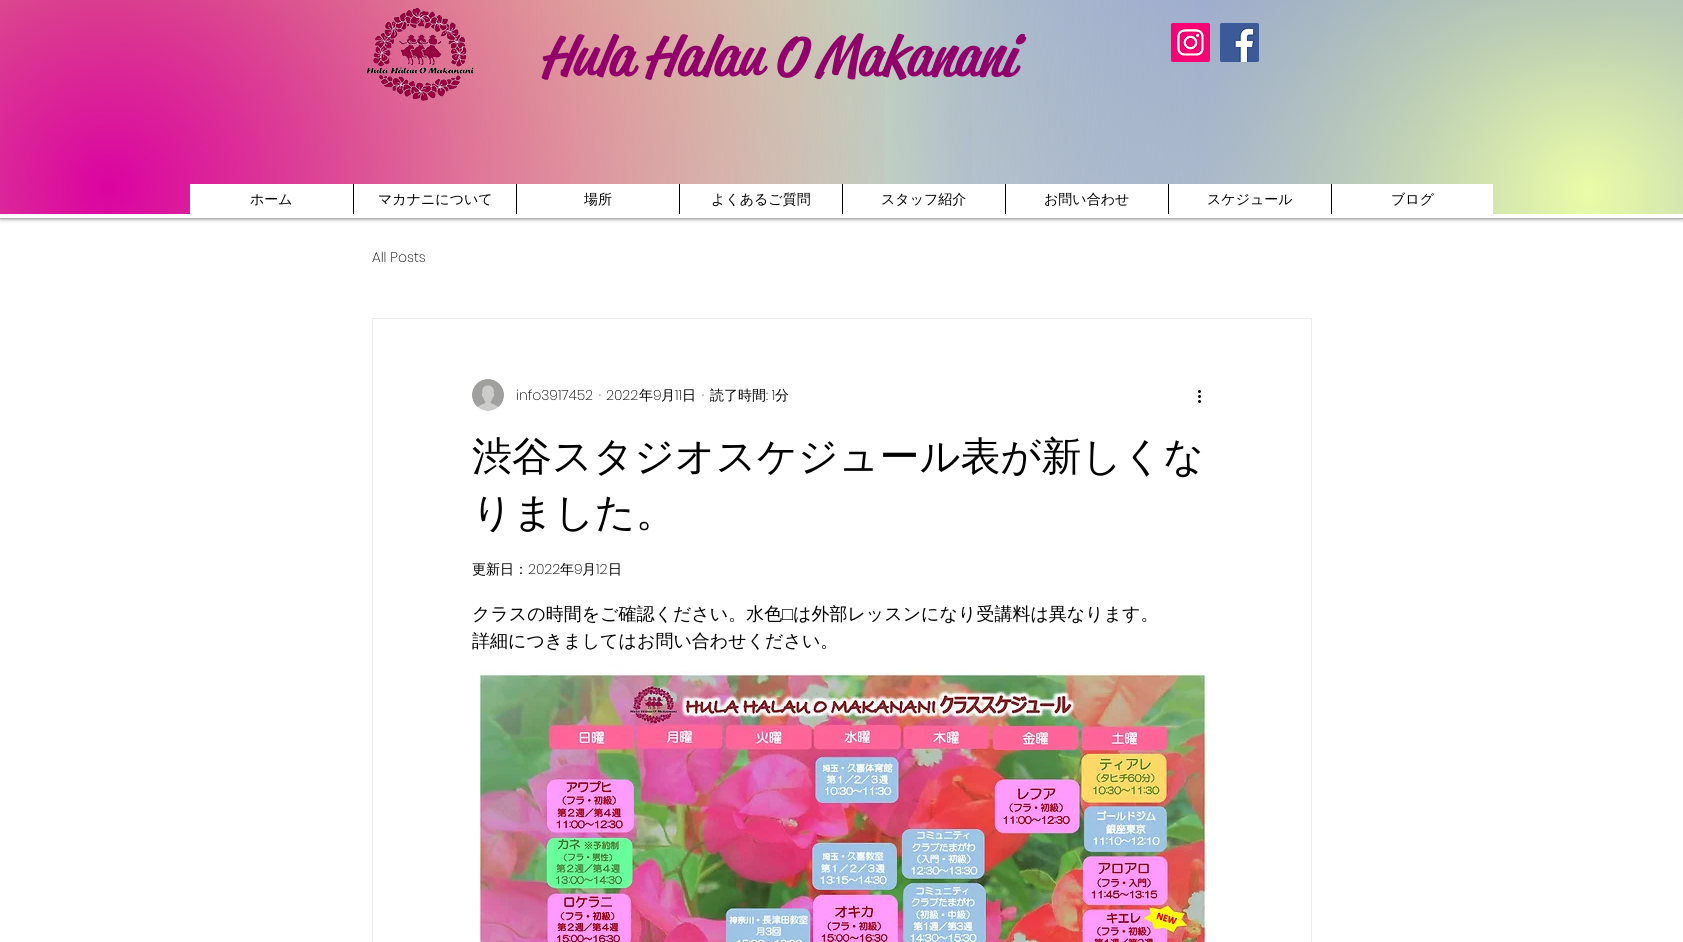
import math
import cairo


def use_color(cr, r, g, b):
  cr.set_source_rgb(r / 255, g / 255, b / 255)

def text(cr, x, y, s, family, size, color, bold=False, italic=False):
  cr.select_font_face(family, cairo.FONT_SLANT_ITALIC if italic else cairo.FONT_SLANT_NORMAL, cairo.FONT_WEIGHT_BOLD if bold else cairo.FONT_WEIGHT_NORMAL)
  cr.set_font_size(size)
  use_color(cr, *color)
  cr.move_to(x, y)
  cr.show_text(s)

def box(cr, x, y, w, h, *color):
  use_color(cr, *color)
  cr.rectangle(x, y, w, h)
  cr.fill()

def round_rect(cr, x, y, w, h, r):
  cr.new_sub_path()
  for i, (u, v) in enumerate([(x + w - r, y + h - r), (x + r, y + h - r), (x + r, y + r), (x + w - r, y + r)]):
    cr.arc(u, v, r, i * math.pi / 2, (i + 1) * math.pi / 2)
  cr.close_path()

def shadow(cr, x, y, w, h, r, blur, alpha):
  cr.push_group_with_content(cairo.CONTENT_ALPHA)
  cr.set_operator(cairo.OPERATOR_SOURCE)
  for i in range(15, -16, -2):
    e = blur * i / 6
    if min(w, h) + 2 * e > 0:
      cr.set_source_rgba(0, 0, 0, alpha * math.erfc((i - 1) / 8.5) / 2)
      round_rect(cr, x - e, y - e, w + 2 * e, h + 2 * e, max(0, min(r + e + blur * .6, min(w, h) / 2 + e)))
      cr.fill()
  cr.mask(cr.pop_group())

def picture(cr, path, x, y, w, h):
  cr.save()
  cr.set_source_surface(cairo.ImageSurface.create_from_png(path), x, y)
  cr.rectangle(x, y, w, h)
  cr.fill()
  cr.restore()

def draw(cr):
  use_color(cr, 255, 255, 255)
  cr.paint()
  cr.save()
  cr.rectangle(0, 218, 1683, 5)
  cr.clip()
  use_color(cr, 0, 0, 0)
  shadow(cr, 0, 0, 1683, 218, 0, 2.5, 0.7)
  cr.restore()
  gradient = cairo.RadialGradient(1577, 24, 0, 1577, 24, 1588)
  gradient.add_color_stop_rgba(0, 0.22, 0.29, 0.827, 1)
  gradient.add_color_stop_rgba(0.7, 1, 1, 1, 1)
  cr.set_source(gradient)
  cr.rectangle(477, 0, 1206, 214)
  cr.fill()
  gradient = cairo.RadialGradient(104, 27, 0, 104, 27, 1590)
  gradient.add_color_stop_rgba(0, 0.839, 0.984, 0.318, 1)
  gradient.add_color_stop_rgba(0.7, 0.839, 0.984, 0.318, 0)
  cr.set_source(gradient)
  cr.rectangle(0, 0, 1195, 214)
  cr.fill()
  gradient = cairo.RadialGradient(109, 188, 0, 109, 188, 1585)
  gradient.add_color_stop_rgba(0, 0.859, 0, 0.631, 0.99)
  gradient.add_color_stop_rgba(0.5, 0.859, 0, 0.631, 0)
  cr.set_source(gradient)
  cr.rectangle(0, 0, 885, 214)
  cr.fill()
  gradient = cairo.RadialGradient(1588, 192, 0, 1588, 192, 1600)
  gradient.add_color_stop_rgba(0, 0.918, 0.988, 0.655, 1)
  gradient.add_color_stop_rgba(0.4, 0.918, 0.988, 0.655, 0)
  cr.set_source(gradient)
  cr.rectangle(972, 0, 711, 214)
  cr.fill()
  picture(cr, "img_01.png", 366, 7, 108, 95)
  picture(cr, "img_02.png", 1171, 23, 39, 39)
  picture(cr, "img_03.png", 1220, 23, 39, 39)
  box(cr, 190, 184, 1303, 30, 255, 255, 255)
  box(cr, 353, 184, 1, 30, 0, 0, 0)
  box(cr, 516, 184, 1, 30, 0, 0, 0)
  box(cr, 679, 184, 1, 30, 0, 0, 0)
  box(cr, 842, 184, 1, 30, 0, 0, 0)
  box(cr, 1005, 184, 1, 30, 0, 0, 0)
  box(cr, 1168, 184, 1, 30, 0, 0, 0)
  box(cr, 1331, 184, 1, 30, 0, 0, 0)
  cr.rectangle(372.5, 318.5, 939, 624)
  use_color(cr, 238, 236, 236)
  cr.set_line_width(1)
  cr.stroke()
  picture(cr, "img_04.png", 472, 379, 32, 32)
  picture(cr, "img_05.png", 1198, 390, 3, 13)
  picture(cr, "img_06.png", 479, 670, 729, 272)
  text(cr, 541, 75, "Hula Halau O Makanani", "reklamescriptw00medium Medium", 55, (146, 0, 107), italic=True)
  text(cr, 250, 204, "ホーム", "WenQuanYi Zen Hei Medium", 14, (0, 0, 0))
  text(cr, 378, 204, "マカナニについて", "WenQuanYi Zen Hei Medium", 14, (0, 0, 0))
  text(cr, 584, 204, "場所", "WenQuanYi Zen Hei Medium", 14, (0, 0, 0))
  text(cr, 711, 204, "よくあるご質問", "WenQuanYi Zen Hei Medium", 14, (0, 0, 0))
  text(cr, 881, 204, "スタッフ紹介", "WenQuanYi Zen Hei Medium", 14, (0, 0, 0))
  text(cr, 1044, 204, "お問い合わせ", "WenQuanYi Zen Hei Medium", 14, (0, 0, 0))
  text(cr, 1207, 204, "スケジュール", "WenQuanYi Zen Hei Medium", 14, (0, 0, 0))
  text(cr, 1391, 204, "ブログ", "WenQuanYi Zen Hei Medium", 14, (0, 0, 0))
  text(cr, 372, 262, "All Posts", "Poppins ExtraLight", 14, (0, 0, 0))
  text(cr, 516, 400, "info3917452", "Poppins ExtraLight", 14, (0, 0, 0))
  text(cr, 599, 400, "·", "Poppins ExtraLight", 14, (0, 0, 0))
  text(cr, 606, 400, "2022", "Poppins ExtraLight", 14, (0, 0, 0))
  text(cr, 639, 400, "年", "WenQuanYi Zen Hei Medium", 14, (0, 0, 0))
  text(cr, 653, 400, "9", "Poppins ExtraLight", 14, (0, 0, 0))
  text(cr, 661, 400, "月", "WenQuanYi Zen Hei Medium", 14, (0, 0, 0))
  text(cr, 675, 400, "11", "Poppins ExtraLight", 14, (0, 0, 0))
  text(cr, 682, 400, "日", "WenQuanYi Zen Hei Medium", 14, (0, 0, 0))
  text(cr, 702, 400, "·", "Poppins ExtraLight", 14, (0, 0, 0))
  text(cr, 710, 400, "読了時間", "WenQuanYi Zen Hei Medium", 14, (0, 0, 0))
  text(cr, 766, 400, ": 1", "Poppins ExtraLight", 14, (0, 0, 0))
  text(cr, 775, 400, "分", "WenQuanYi Zen Hei Medium", 14, (0, 0, 0))
  text(cr, 472, 470, "渋谷スタジオスケジュール表が新しくな", "WenQuanYi Zen Hei Medium", 40, (0, 0, 0))
  text(cr, 472, 526, "りました。", "WenQuanYi Zen Hei Medium", 40, (0, 0, 0))
  text(cr, 472, 574, "更新日：", "WenQuanYi Zen Hei Medium", 14, (0, 0, 0))
  text(cr, 528, 574, "2022", "Poppins ExtraLight", 14, (0, 0, 0))
  text(cr, 560, 574, "年", "WenQuanYi Zen Hei Medium", 14, (0, 0, 0))
  text(cr, 574, 574, "9", "Poppins ExtraLight", 14, (0, 0, 0))
  text(cr, 582, 574, "月", "WenQuanYi Zen Hei Medium", 14, (0, 0, 0))
  text(cr, 596, 574, "12", "Poppins ExtraLight", 14, (0, 0, 0))
  text(cr, 608, 574, "日", "WenQuanYi Zen Hei Medium", 14, (0, 0, 0))
  text(cr, 472, 620, "クラスの時間をご確認ください。水色", "WenQuanYi Zen Hei Medium", 18, (0, 0, 0))
  text(cr, 782, 620, "□", "Liberation Sans", 18, (0, 0, 0))
  text(cr, 793, 620, "は外部レッスンになり受講料は異なります。", "WenQuanYi Zen Hei Medium", 18, (0, 0, 0))
  text(cr, 472, 647, "詳細につきましてはお問い合わせください。", "WenQuanYi Zen Hei Medium", 18, (0, 0, 0))


surface = cairo.ImageSurface(cairo.FORMAT_RGB24, 1683, 942)
cr = cairo.Context(surface)
options = cairo.FontOptions()
options.set_hint_metrics(cairo.HINT_METRICS_OFF)
options.set_hint_style(cairo.HINT_STYLE_NONE)
cr.set_font_options(options)
cr.set_miter_limit(4)
draw(cr)
surface.write_to_png("out.png")
